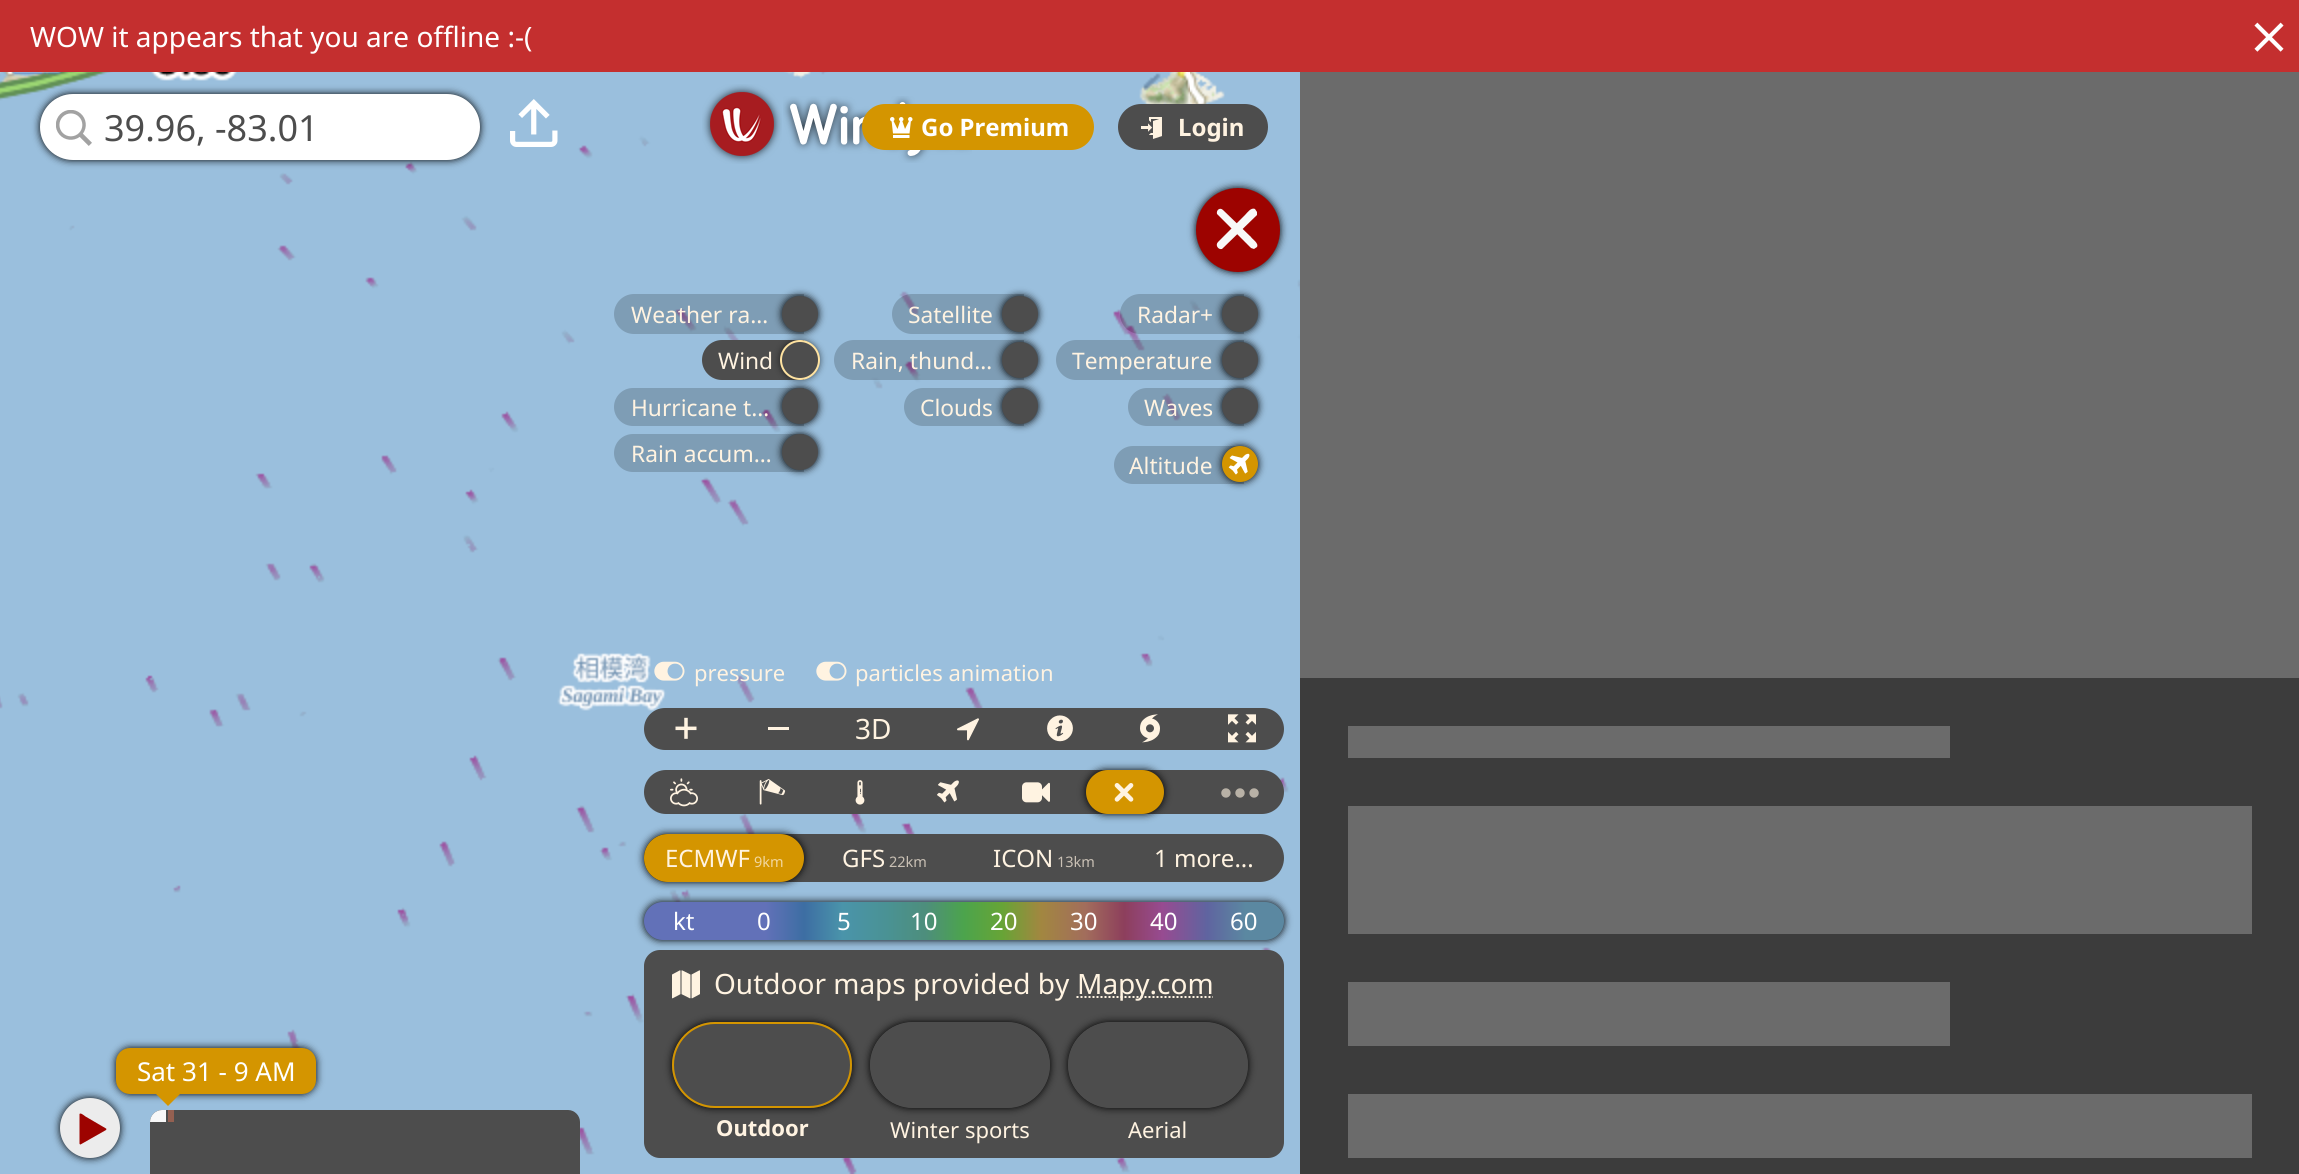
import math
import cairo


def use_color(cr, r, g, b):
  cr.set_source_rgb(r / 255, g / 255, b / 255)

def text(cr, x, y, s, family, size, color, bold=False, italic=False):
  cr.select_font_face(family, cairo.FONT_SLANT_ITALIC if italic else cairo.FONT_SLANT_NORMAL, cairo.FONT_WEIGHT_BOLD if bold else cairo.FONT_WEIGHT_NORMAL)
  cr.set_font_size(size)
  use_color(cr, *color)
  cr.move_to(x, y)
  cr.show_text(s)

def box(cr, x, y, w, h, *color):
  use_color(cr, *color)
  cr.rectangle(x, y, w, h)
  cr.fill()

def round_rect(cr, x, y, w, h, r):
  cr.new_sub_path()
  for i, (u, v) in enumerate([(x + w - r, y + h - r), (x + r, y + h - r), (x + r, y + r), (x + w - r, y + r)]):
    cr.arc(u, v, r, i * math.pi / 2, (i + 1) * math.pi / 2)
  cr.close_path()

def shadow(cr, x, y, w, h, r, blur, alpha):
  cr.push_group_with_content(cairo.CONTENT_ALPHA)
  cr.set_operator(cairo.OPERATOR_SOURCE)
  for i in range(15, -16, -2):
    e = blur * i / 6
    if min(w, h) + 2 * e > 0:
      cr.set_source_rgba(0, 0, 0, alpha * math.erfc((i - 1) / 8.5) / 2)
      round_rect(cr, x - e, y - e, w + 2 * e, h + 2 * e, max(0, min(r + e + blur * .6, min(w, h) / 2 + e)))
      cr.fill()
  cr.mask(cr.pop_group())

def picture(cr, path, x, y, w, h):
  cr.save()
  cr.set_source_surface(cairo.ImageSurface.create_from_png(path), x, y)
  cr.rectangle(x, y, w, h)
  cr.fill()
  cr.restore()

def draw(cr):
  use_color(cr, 255, 255, 255)
  cr.paint()
  box(cr, 0, 0, 2299, 72, 196, 47, 47)
  picture(cr, "img_01.png", 2254, 22, 30, 30)
  box(cr, 1300, 678, 999, 496, 60, 60, 60)
  box(cr, 1300, 72, 999, 606, 107, 107, 107)
  box(cr, 1348, 726, 602, 32, 107, 107, 107)
  box(cr, 1348, 806, 904, 128, 107, 107, 107)
  box(cr, 1348, 982, 602, 64, 107, 107, 107)
  box(cr, 1348, 1094, 904, 64, 107, 107, 107)
  picture(cr, "img_02.png", 0, 72, 166, 404)
  picture(cr, "img_03.png", 166, 72, 512, 404)
  picture(cr, "img_04.png", 678, 72, 512, 404)
  picture(cr, "img_05.png", 1190, 72, 110, 404)
  box(cr, 0, 476, 166, 698, 154, 191, 221)
  picture(cr, "img_06.png", 166, 476, 512, 512)
  box(cr, 678, 476, 512, 474, 154, 191, 221)
  box(cr, 1190, 476, 110, 698, 154, 191, 221)
  box(cr, 166, 988, 512, 186, 154, 191, 221)
  box(cr, 678, 1158, 512, 16, 154, 191, 221)
  picture(cr, "img_07.png", 0, 72, 1300, 1102)
  use_color(cr, 0, 0, 0)
  shadow(cr, 40, 94, 440, 66, 33, 4, 1)
  use_color(cr, 255, 255, 255)
  round_rect(cr, 40, 94, 440, 66, 33)
  cr.fill()
  picture(cr, "img_08.png", 56, 110, 36, 36)
  picture(cr, "img_09.png", 510, 99, 48, 48)
  picture(cr, "img_10.png", 702, 84, 80, 80)
  picture(cr, "img_11.png", 783, 96, 189, 67)
  use_color(cr, 0, 0, 0)
  shadow(cr, 60, 1098, 60, 60, 30, 4, 1)
  use_color(cr, 236, 236, 236)
  cr.arc(90, 1128, 30, 0, 2 * math.pi)
  cr.fill()
  use_color(cr, 0, 0, 0)
  shadow(cr, 116, 1048, 200, 46, 14, 4, 1)
  use_color(cr, 212, 149, 0)
  round_rect(cr, 116, 1048, 200, 46, 14)
  cr.fill()
  cr.new_path()
  cr.move_to(156, 1094)
  cr.line_to(180, 1094)
  cr.line_to(168, 1106)
  cr.close_path()
  cr.fill()
  use_color(cr, 77, 77, 77)
  cr.new_path()
  cr.move_to(162, 1110)
  cr.line_to(568, 1110)
  cr.curve_to(574.5, 1110, 580, 1115.5, 580, 1122)
  cr.line_to(150, 1122)
  cr.curve_to(150, 1115.5, 155.5, 1110, 162, 1110)
  cr.close_path()
  cr.fill()
  use_color(cr, 248, 248, 248)
  cr.new_path()
  cr.move_to(162, 1110)
  cr.line_to(166, 1110)
  cr.line_to(166, 1122)
  cr.line_to(150, 1122)
  cr.curve_to(150, 1115.5, 155.5, 1110, 162, 1110)
  cr.close_path()
  cr.fill()
  box(cr, 168, 1110, 6, 12, 148, 96, 81)
  box(cr, 150, 1122, 430, 52, 77, 77, 77)
  use_color(cr, 157, 3, 0)
  cr.new_path()
  cr.move_to(106.5, 1129)
  cr.line_to(106, 1128.5)
  cr.line_to(85.5, 1116.5)
  cr.curve_to(83.5, 1115, 80.5, 1112.5, 79.5, 1114)
  cr.line_to(79.5, 1143.5)
  cr.curve_to(79.5, 1144, 80, 1144.5, 80.5, 1144.5)
  cr.line_to(106, 1130)
  cr.close_path()
  cr.fill()
  use_color(cr, 212, 149, 0)
  round_rect(cr, 862, 104, 232, 46, 23)
  cr.fill()
  picture(cr, "img_12.png", 890, 117, 23, 21)
  use_color(cr, 77, 77, 77)
  round_rect(cr, 1118, 104, 150, 46, 23)
  cr.fill()
  picture(cr, "img_13.png", 1141, 117, 21, 22)
  use_color(cr, 0, 0, 0)
  shadow(cr, 1196, 188, 84, 84, 42, 4, 1)
  use_color(cr, 157, 3, 0)
  cr.arc(1238, 230, 42, 0, 2 * math.pi)
  cr.fill()
  use_color(cr, 248, 248, 248)
  cr.new_path()
  cr.move_to(1223, 210)
  cr.line_to(1251, 237)
  cr.curve_to(1252, 239, 1259, 243, 1257, 247)
  cr.line_to(1254, 249)
  cr.line_to(1251, 248)
  cr.line_to(1217, 214)
  cr.curve_to(1216, 210, 1220, 207, 1223, 210)
  cr.close_path()
  cr.fill()
  cr.new_path()
  cr.move_to(1218, 242)
  cr.line_to(1245, 215)
  cr.curve_to(1247, 213, 1251, 207, 1255, 209)
  cr.line_to(1257, 212)
  cr.line_to(1257, 215)
  cr.line_to(1222, 249)
  cr.curve_to(1218, 250, 1215, 245, 1218, 242)
  cr.close_path()
  cr.fill()
  cr.set_source_rgba(0, 0, 0, 0.18)
  cr.new_path()
  cr.move_to(634, 294)
  cr.line_to(804, 294)
  cr.line_to(804, 334)
  cr.line_to(634, 334)
  cr.curve_to(623, 334, 614, 325, 614, 314)
  cr.curve_to(614, 303, 623, 294, 634, 294)
  cr.close_path()
  cr.fill()
  use_color(cr, 77, 77, 77)
  cr.new_path()
  cr.move_to(722, 340)
  cr.line_to(804, 340)
  cr.line_to(804, 380)
  cr.line_to(722, 380)
  cr.curve_to(711, 380, 702, 371, 702, 360)
  cr.curve_to(702, 349, 711, 340, 722, 340)
  cr.close_path()
  cr.fill()
  use_color(cr, 0, 0, 0)
  shadow(cr, 782, 296, 36, 36, 18, 4, 1)
  use_color(cr, 77, 77, 77)
  cr.arc(800, 314, 18, 0, 2 * math.pi)
  cr.fill()
  cr.set_source_rgba(0, 0, 0, 0.18)
  cr.new_path()
  cr.move_to(912, 294)
  cr.line_to(1024, 294)
  cr.line_to(1024, 334)
  cr.line_to(912, 334)
  cr.curve_to(901, 334, 892, 325, 892, 314)
  cr.curve_to(892, 303, 901, 294, 912, 294)
  cr.close_path()
  cr.fill()
  cr.new_path()
  cr.move_to(854, 340)
  cr.line_to(1024, 340)
  cr.line_to(1024, 380)
  cr.line_to(854, 380)
  cr.curve_to(843, 380, 834, 371, 834, 360)
  cr.curve_to(834, 349, 843, 340, 854, 340)
  cr.close_path()
  cr.fill()
  use_color(cr, 0, 0, 0)
  shadow(cr, 1002, 296, 36, 36, 18, 4, 1)
  use_color(cr, 77, 77, 77)
  cr.arc(1020, 314, 18, 0, 2 * math.pi)
  cr.fill()
  cr.set_source_rgba(0, 0, 0, 0.18)
  cr.new_path()
  cr.move_to(1140, 294)
  cr.line_to(1244, 294)
  cr.line_to(1244, 334)
  cr.line_to(1140, 334)
  cr.curve_to(1129, 334, 1120, 325, 1120, 314)
  cr.curve_to(1120, 303, 1129, 294, 1140, 294)
  cr.close_path()
  cr.fill()
  cr.new_path()
  cr.move_to(1076, 340)
  cr.line_to(1244, 340)
  cr.line_to(1244, 380)
  cr.line_to(1076, 380)
  cr.curve_to(1065, 380, 1056, 371, 1056, 360)
  cr.curve_to(1056, 349, 1065, 340, 1076, 340)
  cr.close_path()
  cr.fill()
  use_color(cr, 0, 0, 0)
  shadow(cr, 1222, 296, 36, 36, 18, 4, 1)
  use_color(cr, 77, 77, 77)
  cr.arc(1240, 314, 18, 0, 2 * math.pi)
  cr.fill()
  cr.set_source_rgba(0, 0, 0, 0.18)
  cr.new_path()
  cr.move_to(633, 388)
  cr.line_to(804, 388)
  cr.line_to(804, 426)
  cr.line_to(633, 426)
  cr.curve_to(622.5, 426, 614, 417.5, 614, 407)
  cr.curve_to(614, 396.5, 622.5, 388, 633, 388)
  cr.close_path()
  cr.fill()
  use_color(cr, 0, 0, 0)
  shadow(cr, 782, 342, 36, 36, 18, 4, 1)
  use_color(cr, 77, 77, 77)
  cr.arc(800, 360, 19, 0, 2 * math.pi)
  cr.fill_preserve()
  use_color(cr, 255, 227, 161)
  cr.stroke()
  use_color(cr, 126, 157, 181)
  cr.new_path()
  cr.move_to(923, 388)
  cr.line_to(1024, 388)
  cr.line_to(1024, 426)
  cr.line_to(923, 426)
  cr.curve_to(912.5, 426, 904, 417.5, 904, 407)
  cr.curve_to(904, 396.5, 912.5, 388, 923, 388)
  cr.close_path()
  cr.fill()
  use_color(cr, 0, 0, 0)
  shadow(cr, 1002, 342, 36, 36, 18, 4, 1)
  use_color(cr, 77, 77, 77)
  cr.arc(1020, 360, 18, 0, 2 * math.pi)
  cr.fill()
  cr.set_source_rgba(0, 0, 0, 0.18)
  cr.new_path()
  cr.move_to(1147, 388)
  cr.line_to(1244, 388)
  cr.line_to(1244, 426)
  cr.line_to(1147, 426)
  cr.curve_to(1136.5, 426, 1128, 417.5, 1128, 407)
  cr.curve_to(1128, 396.5, 1136.5, 388, 1147, 388)
  cr.close_path()
  cr.fill()
  use_color(cr, 0, 0, 0)
  shadow(cr, 1222, 342, 36, 36, 18, 4, 1)
  use_color(cr, 77, 77, 77)
  cr.arc(1240, 360, 18, 0, 2 * math.pi)
  cr.fill()
  use_color(cr, 126, 157, 181)
  cr.new_path()
  cr.move_to(633, 434)
  cr.line_to(804, 434)
  cr.line_to(804, 472)
  cr.line_to(633, 472)
  cr.curve_to(622.5, 472, 614, 463.5, 614, 453)
  cr.curve_to(614, 442.5, 622.5, 434, 633, 434)
  cr.close_path()
  cr.fill()
  use_color(cr, 0, 0, 0)
  shadow(cr, 782, 388, 36, 36, 18, 4, 1)
  use_color(cr, 77, 77, 77)
  cr.arc(800, 406, 18, 0, 2 * math.pi)
  cr.fill()
  use_color(cr, 0, 0, 0)
  shadow(cr, 1002, 388, 36, 36, 18, 4, 1)
  use_color(cr, 77, 77, 77)
  cr.arc(1020, 406, 18, 0, 2 * math.pi)
  cr.fill()
  use_color(cr, 0, 0, 0)
  shadow(cr, 1222, 388, 36, 36, 18, 4, 1)
  use_color(cr, 77, 77, 77)
  cr.arc(1240, 406, 18, 0, 2 * math.pi)
  cr.fill()
  use_color(cr, 0, 0, 0)
  shadow(cr, 782, 434, 36, 36, 18, 4, 1)
  use_color(cr, 77, 77, 77)
  cr.arc(800, 452, 18, 0, 2 * math.pi)
  cr.fill()
  use_color(cr, 126, 157, 181)
  cr.new_path()
  cr.move_to(1133, 446)
  cr.line_to(1244, 446)
  cr.line_to(1244, 484)
  cr.line_to(1133, 484)
  cr.curve_to(1122.5, 484, 1114, 475.5, 1114, 465)
  cr.curve_to(1114, 454.5, 1122.5, 446, 1133, 446)
  cr.close_path()
  cr.fill()
  use_color(cr, 0, 0, 0)
  shadow(cr, 1222, 446, 36, 36, 18, 4, 1)
  use_color(cr, 212, 149, 0)
  cr.arc(1240, 464, 18, 0, 2 * math.pi)
  cr.fill()
  picture(cr, "img_14.png", 1228, 453, 22, 22)
  picture(cr, "img_15.png", 654, 661, 31, 20)
  picture(cr, "img_15.png", 816, 661, 31, 20)
  use_color(cr, 77, 77, 77)
  round_rect(cr, 644, 708, 640, 42, 21)
  cr.fill()
  picture(cr, "img_16.png", 675, 717, 22, 22)
  box(cr, 768, 727, 21, 3, 255, 243, 225)
  picture(cr, "img_17.png", 957, 718, 22, 23)
  picture(cr, "img_18.png", 1047, 715, 26, 27)
  picture(cr, "img_19.png", 1140, 714, 20, 29)
  picture(cr, "img_20.png", 1228, 714, 28, 29)
  use_color(cr, 77, 77, 77)
  round_rect(cr, 644, 770, 640, 44, 22)
  cr.fill()
  picture(cr, "img_21.png", 670, 778, 28, 29)
  picture(cr, "img_22.png", 759, 779, 27, 26)
  picture(cr, "img_23.png", 855, 780, 10, 25)
  picture(cr, "img_24.png", 937, 780, 22, 23)
  picture(cr, "img_25.png", 1022, 782, 28, 21)
  use_color(cr, 0, 0, 0)
  shadow(cr, 1086, 770, 78, 44, 22, 4, 1)
  use_color(cr, 212, 149, 0)
  round_rect(cr, 1086, 770, 78, 44, 22)
  cr.fill()
  picture(cr, "img_26.png", 1114, 783, 20, 19)
  picture(cr, "img_27.png", 1221, 788, 38, 10)
  use_color(cr, 77, 77, 77)
  round_rect(cr, 644, 834, 640, 48, 24)
  cr.fill()
  use_color(cr, 0, 0, 0)
  shadow(cr, 644, 834, 160, 48, 24, 4, 1)
  use_color(cr, 212, 149, 0)
  round_rect(cr, 644, 834, 160, 48, 24)
  cr.fill()
  use_color(cr, 0, 0, 0)
  shadow(cr, 644, 902, 640, 38, 19, 4, 1)
  gradient = cairo.LinearGradient(644, 921, 1284, 921)
  gradient.add_color_stop_rgba(0, 0.384, 0.443, 0.722, 1)
  gradient.add_color_stop_rgba(0.19, 0.384, 0.443, 0.722, 1)
  gradient.add_color_stop_rgba(0.25, 0.239, 0.431, 0.639, 1)
  gradient.add_color_stop_rgba(0.31, 0.29, 0.58, 0.667, 1)
  gradient.add_color_stop_rgba(0.38, 0.29, 0.573, 0.58, 1)
  gradient.add_color_stop_rgba(0.44, 0.302, 0.557, 0.486, 1)
  gradient.add_color_stop_rgba(0.5, 0.298, 0.643, 0.298, 1)
  gradient.add_color_stop_rgba(0.56, 0.404, 0.643, 0.212, 1)
  gradient.add_color_stop_rgba(0.62, 0.635, 0.529, 0.251, 1)
  gradient.add_color_stop_rgba(0.69, 0.635, 0.427, 0.361, 1)
  gradient.add_color_stop_rgba(0.75, 0.553, 0.247, 0.361, 1)
  gradient.add_color_stop_rgba(0.81, 0.592, 0.294, 0.569, 1)
  gradient.add_color_stop_rgba(0.88, 0.373, 0.392, 0.627, 1)
  gradient.add_color_stop_rgba(0.94, 0.357, 0.533, 0.631, 1)
  gradient.add_color_stop_rgba(1, 0.357, 0.533, 0.631, 1)
  cr.set_source(gradient)
  round_rect(cr, 644, 902, 640, 38, 19)
  cr.fill()
  use_color(cr, 77, 77, 77)
  round_rect(cr, 644, 950, 640, 208, 16)
  cr.fill()
  picture(cr, "img_28.png", 672, 970, 28, 29)
  cr.new_path()
  cr.move_to(1076.5, 997)
  cr.line_to(1213, 997)
  use_color(cr, 255, 243, 225)
  cr.set_dash([2, 2])
  cr.stroke()
  cr.save()
  cr.set_fill_rule(cairo.FILL_RULE_EVEN_ODD)
  cr.new_path()
  cr.move_to(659, 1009)
  cr.line_to(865, 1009)
  cr.line_to(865, 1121)
  cr.line_to(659, 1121)
  cr.close_path()
  cr.move_to(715, 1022)
  cr.line_to(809, 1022)
  cr.curve_to(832.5, 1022, 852, 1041.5, 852, 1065)
  cr.curve_to(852, 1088.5, 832.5, 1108, 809, 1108)
  cr.line_to(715, 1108)
  cr.curve_to(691.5, 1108, 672, 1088.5, 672, 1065)
  cr.curve_to(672, 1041.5, 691.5, 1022, 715, 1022)
  cr.close_path()
  cr.clip()
  use_color(cr, 0, 0, 0)
  shadow(cr, 672, 1022, 180, 86, 43, 4, 1)
  cr.restore()
  round_rect(cr, 673, 1023, 178, 84, 42)
  use_color(cr, 212, 149, 0)
  cr.set_dash([])
  cr.stroke()
  cr.save()
  cr.set_fill_rule(cairo.FILL_RULE_EVEN_ODD)
  cr.new_path()
  cr.move_to(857, 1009)
  cr.line_to(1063, 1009)
  cr.line_to(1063, 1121)
  cr.line_to(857, 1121)
  cr.close_path()
  cr.move_to(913, 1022)
  cr.line_to(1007, 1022)
  cr.curve_to(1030.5, 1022, 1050, 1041.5, 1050, 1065)
  cr.curve_to(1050, 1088.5, 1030.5, 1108, 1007, 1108)
  cr.line_to(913, 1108)
  cr.curve_to(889.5, 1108, 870, 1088.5, 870, 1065)
  cr.curve_to(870, 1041.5, 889.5, 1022, 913, 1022)
  cr.close_path()
  cr.clip()
  use_color(cr, 0, 0, 0)
  shadow(cr, 870, 1022, 180, 86, 43, 4, 1)
  cr.restore()
  cr.save()
  cr.set_fill_rule(cairo.FILL_RULE_EVEN_ODD)
  cr.new_path()
  cr.move_to(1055, 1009)
  cr.line_to(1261, 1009)
  cr.line_to(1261, 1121)
  cr.line_to(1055, 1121)
  cr.close_path()
  cr.move_to(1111, 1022)
  cr.line_to(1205, 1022)
  cr.curve_to(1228.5, 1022, 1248, 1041.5, 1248, 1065)
  cr.curve_to(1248, 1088.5, 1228.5, 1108, 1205, 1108)
  cr.line_to(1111, 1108)
  cr.curve_to(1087.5, 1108, 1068, 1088.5, 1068, 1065)
  cr.curve_to(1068, 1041.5, 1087.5, 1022, 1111, 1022)
  cr.close_path()
  cr.clip()
  use_color(cr, 0, 0, 0)
  shadow(cr, 1068, 1022, 180, 86, 43, 4, 1)
  cr.restore()
  text(cr, 30, 47, "WOW it appears that you are offline :-(", "Noto Sans", 28, (255, 255, 255))
  text(cr, 104, 141, "39.96, -83.01", "Noto Sans", 36, (77, 77, 77))
  text(cr, 137, 1081, "Sat 31 - 9 AM", "Noto Sans", 26, (255, 255, 255))
  text(cr, 921, 136, "Go Premium", "Noto Sans", 24, (255, 255, 255), bold=True)
  text(cr, 1178, 136, "Login", "Noto Sans", 24, (255, 243, 225), bold=True)
  text(cr, 631, 323, "Weather ra…", "Noto Sans", 22.75, (255, 243, 225))
  text(cr, 908, 323, "Satellite", "Noto Sans", 22.75, (255, 243, 225))
  text(cr, 1137, 323, "Radar+", "Noto Sans", 22.75, (255, 243, 225))
  text(cr, 718, 369, "Wind", "Noto Sans", 22.75, (255, 243, 225))
  text(cr, 851, 369, "Rain, thund…", "Noto Sans", 22.75, (255, 243, 225))
  text(cr, 1072, 369, "Temperature", "Noto Sans", 22.75, (255, 243, 225))
  text(cr, 631, 416, "Hurricane t…", "Noto Sans", 22.75, (255, 243, 225))
  text(cr, 920, 416, "Clouds", "Noto Sans", 22.75, (255, 243, 225))
  text(cr, 1144, 416, "Waves", "Noto Sans", 22.75, (255, 243, 225))
  text(cr, 631, 462, "Rain accum…", "Noto Sans", 22.75, (255, 243, 225))
  text(cr, 1129, 474, "Altitude", "Noto Sans", 22.75, (255, 243, 225))
  text(cr, 694, 681, "pressure", "Noto Sans", 22, (255, 243, 225))
  text(cr, 855, 681, "particles animation", "Noto Sans", 22, (255, 243, 225))
  text(cr, 855, 739, "3D", "Noto Sans", 28, (255, 243, 225))
  text(cr, 665, 867, "ECMWF", "Noto Sans", 24, (255, 243, 225))
  text(cr, 754, 867, "9km", "Noto Sans", 14.5, (242, 215, 158))
  text(cr, 842, 867, "GFS", "Noto Sans", 24, (255, 243, 225))
  text(cr, 889, 867, "22km", "Noto Sans", 14.5, (202, 193, 181))
  text(cr, 993, 867, "ICON", "Noto Sans", 24, (255, 243, 225))
  text(cr, 1057, 867, "13km", "Noto Sans", 14.5, (202, 193, 181))
  text(cr, 1154, 867, "1 more...", "Noto Sans", 24, (255, 243, 225))
  text(cr, 673, 930, "kt", "Noto Sans", 24, (255, 255, 255))
  text(cr, 757, 930, "0", "Noto Sans", 24, (255, 255, 255))
  text(cr, 837, 930, "5", "Noto Sans", 24, (255, 255, 255))
  text(cr, 910, 930, "10", "Noto Sans", 24, (255, 255, 255))
  text(cr, 990, 930, "20", "Noto Sans", 24, (255, 255, 255))
  text(cr, 1070, 930, "30", "Noto Sans", 24, (255, 255, 255))
  text(cr, 1150, 930, "40", "Noto Sans", 24, (255, 255, 255))
  text(cr, 1230, 930, "60", "Noto Sans", 24, (255, 255, 255))
  text(cr, 714, 994, "Outdoor maps provided by", "Noto Sans", 28, (255, 243, 225))
  text(cr, 1077, 994, "Mapy.com", "Noto Sans", 28, (255, 243, 225))
  text(cr, 716, 1136, "Outdoor", "Noto Sans", 22, (255, 243, 225), bold=True)
  text(cr, 890, 1138, "Winter sports", "Noto Sans", 22, (255, 243, 225))
  text(cr, 1128, 1138, "Aerial", "Noto Sans", 22, (255, 243, 225))


surface = cairo.ImageSurface(cairo.FORMAT_RGB24, 2299, 1174)
cr = cairo.Context(surface)
options = cairo.FontOptions()
options.set_hint_metrics(cairo.HINT_METRICS_OFF)
options.set_hint_style(cairo.HINT_STYLE_NONE)
cr.set_font_options(options)
cr.set_miter_limit(4)
draw(cr)
surface.write_to_png("out.png")
